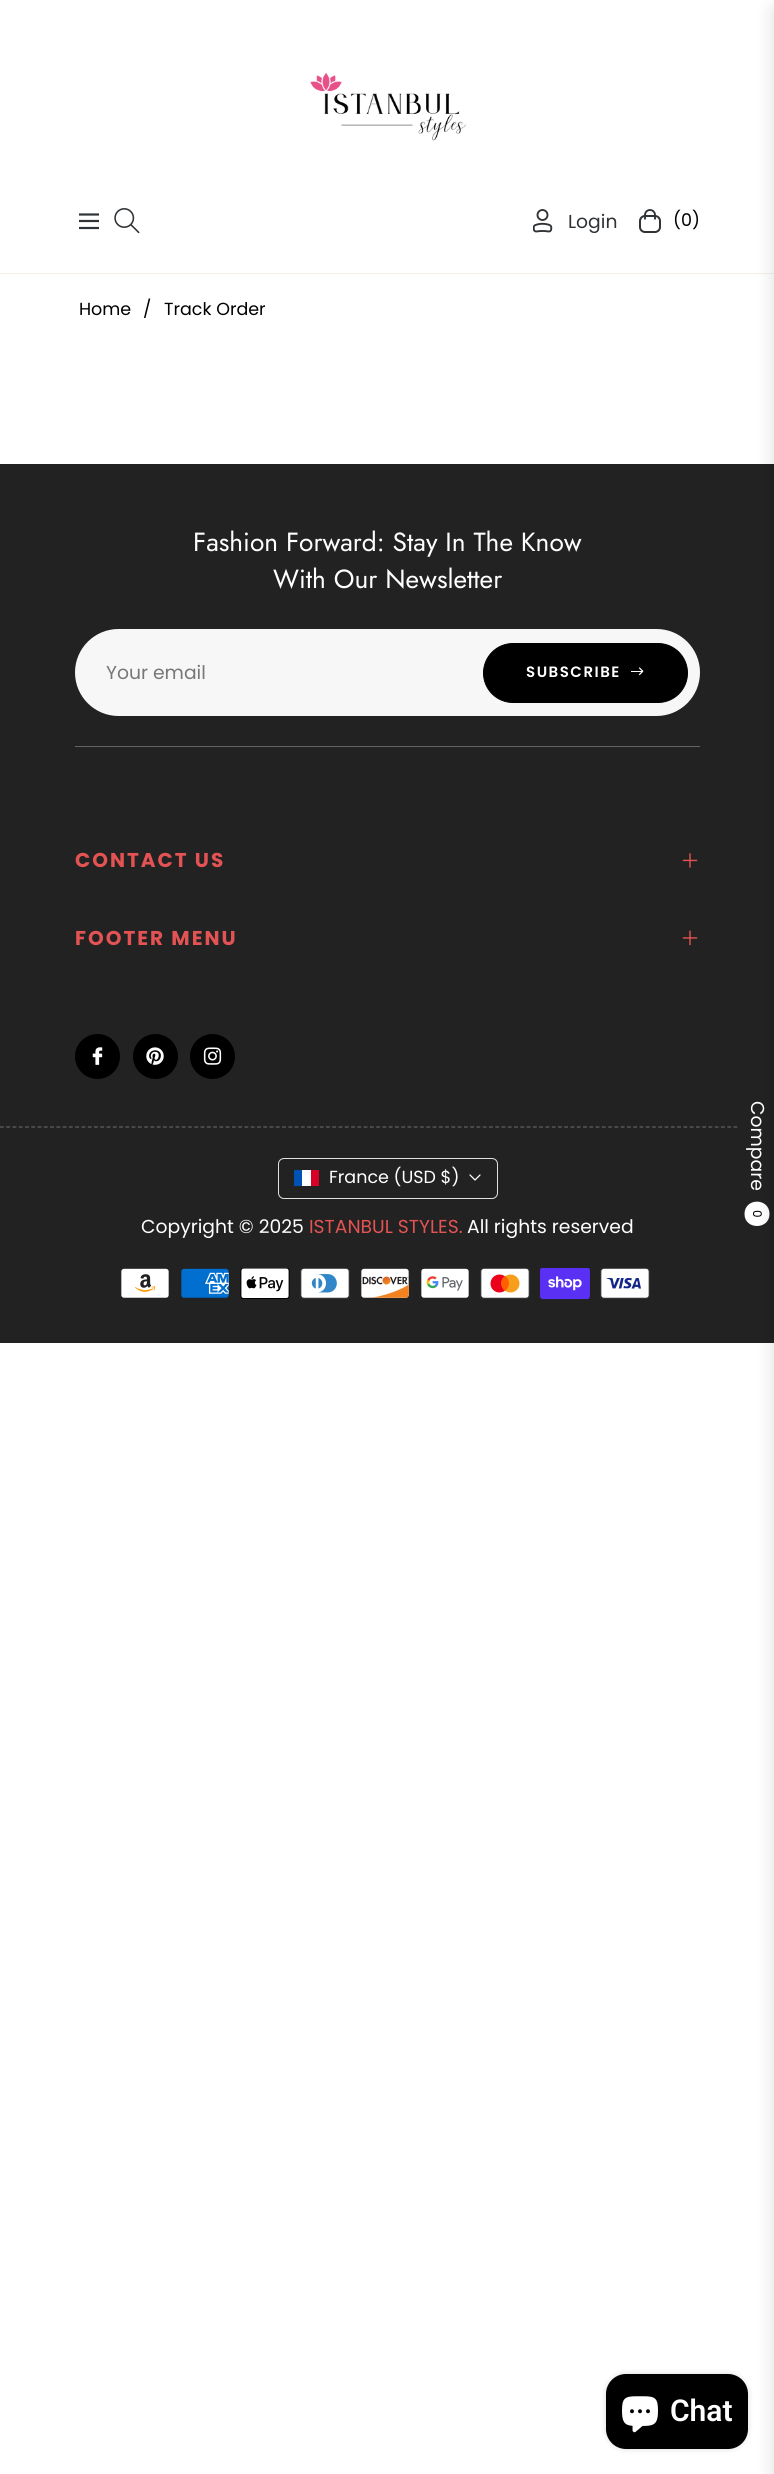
import math
import cairo


def use_color(cr, r, g, b):
  cr.set_source_rgb(r / 255, g / 255, b / 255)

def text(cr, x, y, s, family, size, color, bold=False, italic=False):
  cr.select_font_face(family, cairo.FONT_SLANT_ITALIC if italic else cairo.FONT_SLANT_NORMAL, cairo.FONT_WEIGHT_BOLD if bold else cairo.FONT_WEIGHT_NORMAL)
  cr.set_font_size(size)
  use_color(cr, *color)
  cr.move_to(x, y)
  cr.show_text(s)

def spaced_text(cr, x, y, s, letter, word):
  cr.move_to(x, y)
  for ch in s:
    cr.show_text(ch)
    cr.rel_move_to(letter + word * (ch == ' '), 0)

def box(cr, x, y, w, h, *color):
  use_color(cr, *color)
  cr.rectangle(x, y, w, h)
  cr.fill()

def round_rect(cr, x, y, w, h, r):
  cr.new_sub_path()
  for i, (u, v) in enumerate([(x + w - r, y + h - r), (x + r, y + h - r), (x + r, y + r), (x + w - r, y + r)]):
    cr.arc(u, v, r, i * math.pi / 2, (i + 1) * math.pi / 2)
  cr.close_path()

def shadow(cr, x, y, w, h, r, blur, alpha):
  cr.push_group_with_content(cairo.CONTENT_ALPHA)
  cr.set_operator(cairo.OPERATOR_SOURCE)
  for i in range(15, -16, -2):
    e = blur * i / 6
    if min(w, h) + 2 * e > 0:
      cr.set_source_rgba(0, 0, 0, alpha * math.erfc((i - 1) / 8.5) / 2)
      round_rect(cr, x - e, y - e, w + 2 * e, h + 2 * e, max(0, min(r + e + blur * .6, min(w, h) / 2 + e)))
      cr.fill()
  cr.mask(cr.pop_group())

def picture(cr, path, x, y, w, h):
  cr.save()
  cr.set_source_surface(cairo.ImageSurface.create_from_png(path), x, y)
  cr.rectangle(x, y, w, h)
  cr.fill()
  cr.restore()

def draw(cr):
  use_color(cr, 255, 255, 255)
  cr.paint()
  box(cr, 0, 273, 774, 1, 244, 239, 233)
  box(cr, 0, 464, 774, 879, 34, 34, 34)
  box(cr, 75, 746, 625, 1, 100, 100, 100)
  use_color(cr, 247, 247, 247)
  round_rect(cr, 75, 629, 625, 87, 43.5)
  cr.fill()
  use_color(cr, 0, 0, 0)
  round_rect(cr, 483.5, 643.5, 204, 59, 29.5)
  cr.fill_preserve()
  cr.set_line_width(1)
  cr.stroke()
  picture(cr, "img_01.png", 631, 667, 13, 9)
  picture(cr, "img_02.png", 682, 853, 16, 15)
  picture(cr, "img_03.png", 682, 930, 16, 16)
  cr.arc(97.5, 1056.5, 22.5, 0, 2 * math.pi)
  cr.fill()
  picture(cr, "img_04.png", 92, 1047, 11, 18)
  cr.arc(155.5, 1056.5, 22.5, 0, 2 * math.pi)
  cr.fill()
  picture(cr, "img_05.png", 146, 1047, 18, 18)
  cr.arc(212.5, 1056.5, 22.5, 0, 2 * math.pi)
  cr.fill()
  picture(cr, "img_06.png", 203, 1047, 19, 18)
  cr.new_path()
  cr.move_to(0, 1127)
  cr.line_to(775, 1127)
  use_color(cr, 100, 100, 100)
  cr.set_line_width(1.2)
  cr.set_dash([3.75, 2.52])
  cr.stroke()
  round_rect(cr, 278.5, 1158.5, 219, 40, 5.5)
  use_color(cr, 225, 225, 225)
  cr.set_line_width(1)
  cr.set_dash([])
  cr.stroke()
  box(cr, 302, 1170, 9, 16, 255, 255, 255)
  box(cr, 294, 1170, 8, 16, 0, 82, 180)
  box(cr, 311, 1170, 8, 16, 216, 0, 39)
  picture(cr, "img_07.png", 469, 1174, 12, 7)
  picture(cr, "img_08.png", 121, 1268, 48, 30)
  picture(cr, "img_09.png", 181, 1268, 48, 30)
  picture(cr, "img_10.png", 240, 1268, 50, 31)
  picture(cr, "img_11.png", 300, 1268, 50, 31)
  picture(cr, "img_12.png", 361, 1268, 48, 30)
  picture(cr, "img_13.png", 421, 1268, 48, 30)
  picture(cr, "img_14.png", 480, 1268, 50, 31)
  picture(cr, "img_15.png", 540, 1268, 50, 32)
  picture(cr, "img_16.png", 600, 1268, 50, 31)
  picture(cr, "img_17.png", 310, 73, 156, 68)
  cr.new_path()
  cr.move_to(79, 214.5)
  cr.line_to(99, 214.5)
  cr.move_to(79, 228)
  cr.line_to(99, 228)
  cr.close_path()
  cr.move_to(79, 221)
  cr.line_to(99, 221)
  cr.close_path()
  use_color(cr, 47, 51, 54)
  cr.set_line_width(2.2)
  cr.stroke()
  picture(cr, "img_18.png", 114, 208, 26, 26)
  picture(cr, "img_19.png", 533, 209, 20, 24)
  picture(cr, "img_20.png", 639, 209, 22, 24)
  use_color(cr, 34, 34, 34)
  cr.new_path()
  cr.move_to(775, 1090)
  cr.line_to(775, 1238)
  cr.line_to(749, 1238)
  cr.curve_to(744, 1238, 739, 1233, 739, 1228)
  cr.line_to(739, 1100)
  cr.curve_to(739, 1095, 744, 1090, 749, 1090)
  cr.close_path()
  cr.fill()
  use_color(cr, 255, 255, 255)
  cr.new_path()
  cr.move_to(769.5, 1214)
  cr.curve_to(769.5, 1230, 744.5, 1230, 744.5, 1214)
  cr.curve_to(744.5, 1197.5, 769.5, 1197.5, 769.5, 1214)
  cr.close_path()
  cr.fill()
  use_color(cr, 0, 0, 0)
  shadow(cr, 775, 10, 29, 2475, 0, 10, 0.15)
  shadow(cr, 606, 2374, 142, 75, 20, 3, 0.15)
  use_color(cr, 0, 0, 0)
  round_rect(cr, 606, 2374, 142, 75, 20)
  cr.fill()
  picture(cr, "img_21.png", 622, 2396, 36, 37)
  text(cr, 79, 315, "Home", "Poppins", 17.5, (0, 0, 0))
  text(cr, 143, 315, "/", "Poppins", 17.5, (0, 0, 0))
  text(cr, 164, 315, "Track Order", "Poppins", 17.5, (0, 0, 0))
  text(cr, 193, 551, "Fashion Forward: Stay In The Know", "Jost", 26.25, (255, 255, 255))
  text(cr, 273, 588, "With Our Newsletter", "Jost", 26.25, (255, 255, 255))
  text(cr, 106, 679, "Your email", "Poppins", 18.75, (119, 119, 119))
  cr.select_font_face("Poppins SemiBold")
  cr.set_font_size(15)
  use_color(cr, 255, 255, 255)
  spaced_text(cr, 526, 677, "SUBSCRIBE", 1.5, 0)
  cr.select_font_face("Poppins", cairo.FONT_SLANT_NORMAL, cairo.FONT_WEIGHT_BOLD)
  cr.set_font_size(20)
  use_color(cr, 227, 83, 83)
  spaced_text(cr, 75, 867, "CONTACT US", 2, 0)
  spaced_text(cr, 75, 945, "FOOTER MENU", 2, 0)
  text(cr, 329, 1183, "France (USD $)", "Poppins", 17.5, (255, 255, 255))
  text(cr, 141, 1233, "Copyright © 2025", "Poppins", 18.75, (255, 255, 255))
  text(cr, 309, 1233, "ISTANBUL STYLES.", "Poppins", 18.75, (227, 83, 83))
  text(cr, 467, 1233, "All rights reserved", "Poppins", 18.75, (255, 255, 255))
  text(cr, 568, 228, "Login", "Poppins", 18.75, (47, 51, 54))
  text(cr, 673, 226, "(0)", "Poppins", 17.5, (0, 0, 0))
  cr.save()
  cr.translate(751, 1101)
  cr.rotate(90 * math.pi / 180)
  text(cr, 0, 0, "Compare", "Poppins", 18.75, (255, 255, 255))
  cr.restore()
  cr.save()
  cr.translate(753, 1210)
  cr.rotate(90 * math.pi / 180)
  text(cr, 0, 0, "0", "Poppins", 12, (0, 0, 0))
  cr.restore()
  text(cr, 670, 2421, "Chat", "Roboto SemiBold", 30, (255, 255, 255))


surface = cairo.ImageSurface(cairo.FORMAT_RGB24, 774, 2474)
cr = cairo.Context(surface)
options = cairo.FontOptions()
options.set_hint_metrics(cairo.HINT_METRICS_OFF)
options.set_hint_style(cairo.HINT_STYLE_NONE)
cr.set_font_options(options)
cr.set_miter_limit(4)
draw(cr)
surface.write_to_png("out.png")
